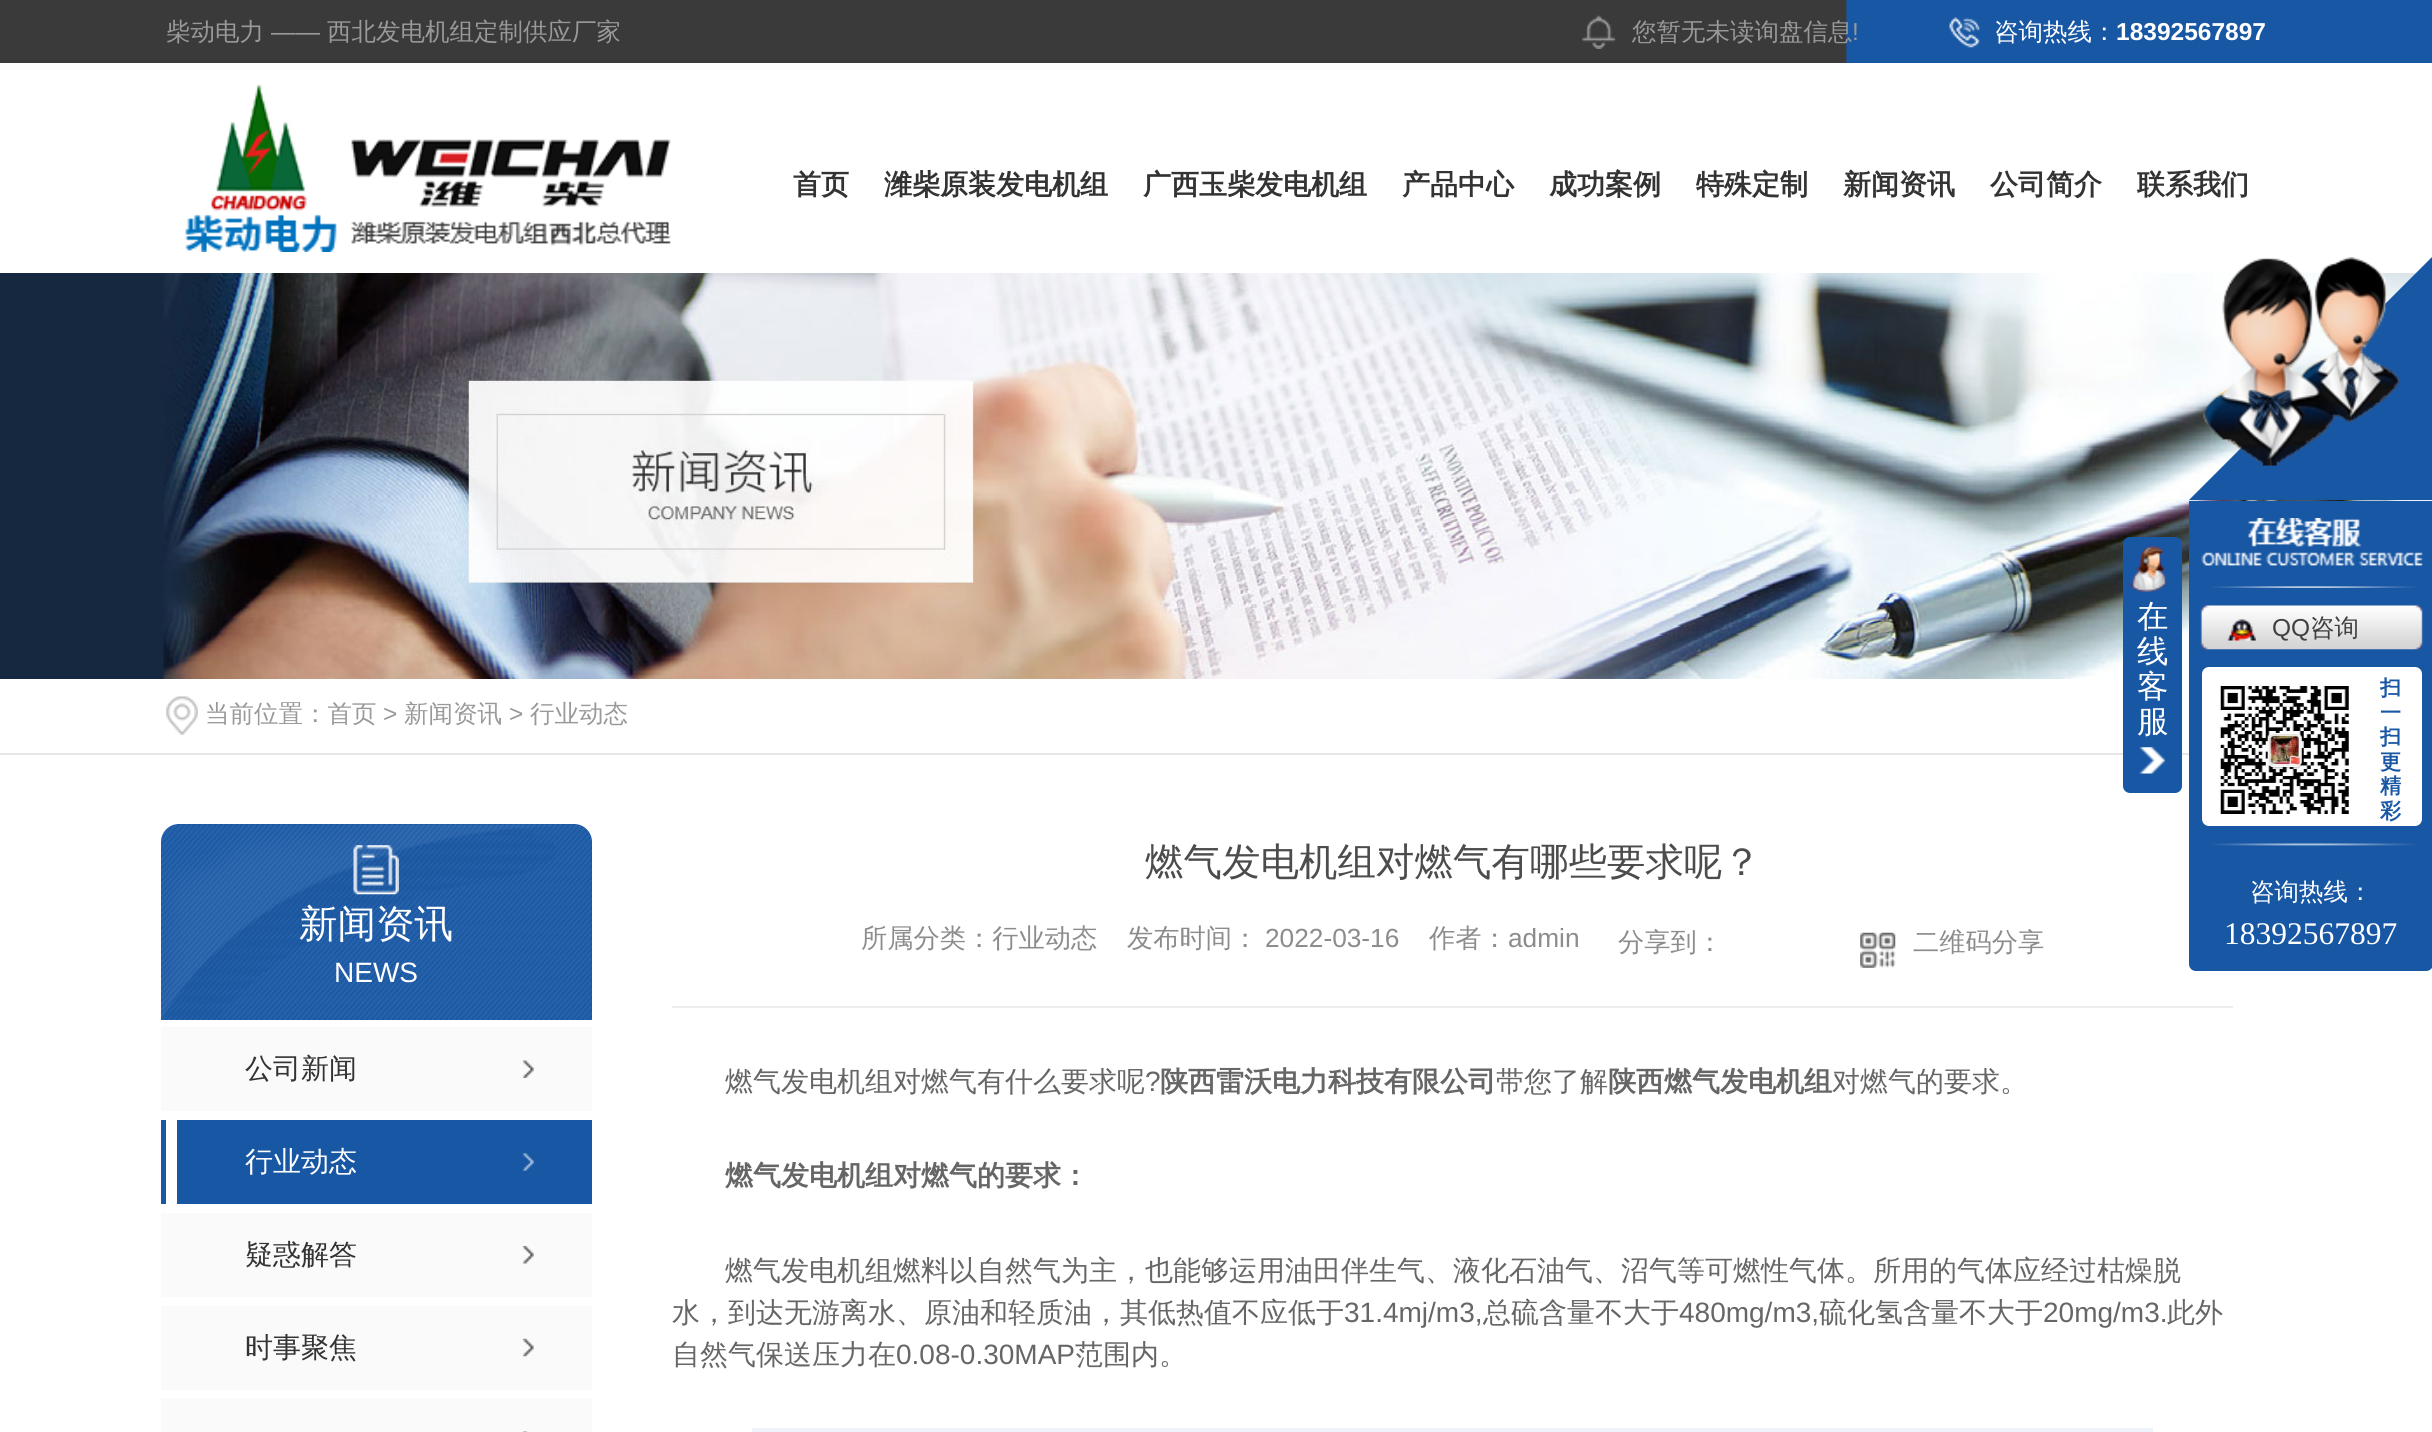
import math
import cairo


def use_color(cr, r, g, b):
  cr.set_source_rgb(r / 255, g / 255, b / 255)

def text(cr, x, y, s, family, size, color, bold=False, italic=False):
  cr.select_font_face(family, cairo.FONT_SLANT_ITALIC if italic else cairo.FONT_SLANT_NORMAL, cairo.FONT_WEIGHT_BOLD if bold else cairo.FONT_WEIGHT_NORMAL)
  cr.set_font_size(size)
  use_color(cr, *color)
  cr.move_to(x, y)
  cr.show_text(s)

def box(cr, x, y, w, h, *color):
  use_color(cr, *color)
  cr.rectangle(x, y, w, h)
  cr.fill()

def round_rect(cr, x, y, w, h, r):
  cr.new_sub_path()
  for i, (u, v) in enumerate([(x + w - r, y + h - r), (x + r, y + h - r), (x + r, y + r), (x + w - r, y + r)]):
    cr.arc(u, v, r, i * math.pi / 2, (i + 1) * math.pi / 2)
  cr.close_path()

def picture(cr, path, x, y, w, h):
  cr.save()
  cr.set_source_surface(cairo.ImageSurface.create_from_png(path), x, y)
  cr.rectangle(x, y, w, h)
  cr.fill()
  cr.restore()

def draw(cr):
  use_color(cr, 255, 255, 255)
  cr.paint()
  picture(cr, "img_01.png", 0, 0, 2432, 63)
  picture(cr, "img_02.png", 1582, 15, 34, 34)
  picture(cr, "img_03.png", 1949, 17, 31, 31)
  picture(cr, "img_04.png", 185, 84, 486, 168)
  picture(cr, "img_05.png", 0, 273, 2432, 406)
  box(cr, 0, 753, 2189, 2, 230, 230, 230)
  picture(cr, "img_06.png", 166, 696, 32, 39)
  use_color(cr, 24, 87, 164)
  round_rect(cr, 2123, 537, 59, 256, 7)
  cr.fill()
  picture(cr, "img_07.png", 2139, 747, 26, 27)
  picture(cr, "img_08.png", 2127, 546, 40, 46)
  cr.new_path()
  cr.move_to(2432, 257)
  cr.line_to(2189, 500)
  cr.line_to(2432, 500)
  cr.close_path()
  cr.fill()
  picture(cr, "img_09.png", 2203, 257, 197, 209)
  cr.new_path()
  cr.move_to(2189, 501)
  cr.line_to(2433, 501)
  cr.line_to(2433, 964)
  cr.curve_to(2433, 968, 2430, 971, 2426, 971)
  cr.line_to(2196, 971)
  cr.curve_to(2192, 971, 2189, 968, 2189, 964)
  cr.close_path()
  cr.fill()
  picture(cr, "img_10.png", 2201, 518, 222, 48)
  picture(cr, "img_11.png", 2211, 586, 206, 2)
  picture(cr, "img_12.png", 2200, 605, 223, 45)
  picture(cr, "img_13.png", 2227, 619, 29, 22)
  use_color(cr, 255, 255, 255)
  round_rect(cr, 2202, 667, 220, 159, 7)
  cr.fill()
  picture(cr, "img_14.png", 2219, 684, 130, 130)
  picture(cr, "img_15.png", 2212, 843, 204, 3)
  use_color(cr, 24, 87, 164)
  cr.new_path()
  cr.move_to(179, 824)
  cr.line_to(574, 824)
  cr.curve_to(584, 824, 592, 832, 592, 842)
  cr.line_to(592, 1020)
  cr.line_to(161, 1020)
  cr.line_to(161, 842)
  cr.curve_to(161, 832, 169, 824, 179, 824)
  cr.close_path()
  cr.fill()
  picture(cr, "img_16.png", 161, 824, 431, 196)
  picture(cr, "img_17.png", 353, 845, 46, 50)
  box(cr, 161, 1027, 431, 84, 250, 250, 250)
  picture(cr, "img_18.png", 523, 1060, 11, 18)
  box(cr, 161, 1120, 431, 84, 24, 87, 164)
  box(cr, 166, 1120, 11, 84, 255, 255, 255)
  picture(cr, "img_19.png", 523, 1153, 11, 18)
  box(cr, 161, 1213, 431, 84, 250, 250, 250)
  picture(cr, "img_20.png", 523, 1246, 11, 18)
  box(cr, 161, 1306, 431, 84, 250, 250, 250)
  picture(cr, "img_21.png", 523, 1338, 11, 19)
  box(cr, 161, 1398, 431, 34, 250, 250, 250)
  picture(cr, "img_22.png", 523, 1431, 5, 1)
  picture(cr, "img_23.png", 1860, 932, 36, 36)
  box(cr, 672, 1006, 1561, 2, 237, 237, 237)
  box(cr, 752, 1428, 1401, 4, 238, 242, 251)
  text(cr, 166, 40, "柴动电力", "WenQuanYi Zen Hei Medium", 24.5, (153, 153, 153))
  text(cr, 271, 40, "——", "Liberation Sans", 24.5, (153, 153, 153))
  text(cr, 327, 40, "西北发电机组定制供应厂家", "WenQuanYi Zen Hei Medium", 24.5, (153, 153, 153))
  text(cr, 1632, 40, "您暂无未读询盘信息", "WenQuanYi Zen Hei Medium", 24.5, (153, 153, 153))
  text(cr, 1852, 40, "!", "Liberation Sans", 24.5, (153, 153, 153))
  text(cr, 1994, 40, "咨询热线：", "WenQuanYi Zen Hei Medium", 24.5, (255, 255, 255))
  text(cr, 2116, 40, "18392567897", "Liberation Sans", 24.5, (255, 255, 255), bold=True)
  text(cr, 793, 194, "首页", "WenQuanYi Zen Hei", 28, (51, 51, 51), bold=True)
  text(cr, 884, 194, "潍柴原装发电机组", "WenQuanYi Zen Hei", 28, (51, 51, 51), bold=True)
  text(cr, 1143, 194, "广西玉柴发电机组", "WenQuanYi Zen Hei", 28, (51, 51, 51), bold=True)
  text(cr, 1402, 194, "产品中心", "WenQuanYi Zen Hei", 28, (51, 51, 51), bold=True)
  text(cr, 1549, 194, "成功案例", "WenQuanYi Zen Hei", 28, (51, 51, 51), bold=True)
  text(cr, 1696, 194, "特殊定制", "WenQuanYi Zen Hei", 28, (51, 51, 51), bold=True)
  text(cr, 1843, 194, "新闻资讯", "WenQuanYi Zen Hei", 28, (51, 51, 51), bold=True)
  text(cr, 1990, 194, "公司简介", "WenQuanYi Zen Hei", 28, (51, 51, 51), bold=True)
  text(cr, 2137, 194, "联系我们", "WenQuanYi Zen Hei", 28, (51, 51, 51), bold=True)
  text(cr, 205, 722, "当前位置：首页", "WenQuanYi Zen Hei Medium", 24.5, (153, 153, 153))
  text(cr, 383, 722, ">", "Liberation Sans", 24.5, (153, 153, 153))
  text(cr, 404, 722, "新闻资讯", "WenQuanYi Zen Hei Medium", 24.5, (153, 153, 153))
  text(cr, 509, 722, ">", "Liberation Sans", 24.5, (153, 153, 153))
  text(cr, 530, 722, "行业动态", "WenQuanYi Zen Hei Medium", 24.5, (153, 153, 153))
  text(cr, 2137, 627, "在", "WenQuanYi Zen Hei Medium", 31.5, (255, 255, 255))
  text(cr, 2137, 662, "线", "WenQuanYi Zen Hei Medium", 31.5, (255, 255, 255))
  text(cr, 2137, 697, "客", "WenQuanYi Zen Hei Medium", 31.5, (255, 255, 255))
  text(cr, 2137, 732, "服", "WenQuanYi Zen Hei Medium", 31.5, (255, 255, 255))
  text(cr, 2272, 636, "QQ", "Liberation Sans", 24.5, (64, 64, 64))
  text(cr, 2310, 636, "咨询", "WenQuanYi Zen Hei Medium", 24.5, (64, 64, 64))
  text(cr, 2380, 695, "扫", "WenQuanYi Zen Hei", 21, (24, 87, 164), bold=True)
  text(cr, 2380, 720, "一", "WenQuanYi Zen Hei", 21, (24, 87, 164), bold=True)
  text(cr, 2380, 744, "扫", "WenQuanYi Zen Hei", 21, (24, 87, 164), bold=True)
  text(cr, 2380, 769, "更", "WenQuanYi Zen Hei", 21, (24, 87, 164), bold=True)
  text(cr, 2380, 793, "精", "WenQuanYi Zen Hei", 21, (24, 87, 164), bold=True)
  text(cr, 2380, 818, "彩", "WenQuanYi Zen Hei", 21, (24, 87, 164), bold=True)
  text(cr, 2250, 900, "咨询热线：", "WenQuanYi Zen Hei Medium", 24.5, (255, 255, 255))
  text(cr, 2224, 944, "18392567897", "Liberation Serif", 31.5, (255, 255, 255))
  text(cr, 299, 937, "新闻资讯", "WenQuanYi Zen Hei Medium", 38.5, (255, 255, 255))
  text(cr, 334, 982, "NEWS", "Liberation Sans", 28, (255, 255, 255))
  text(cr, 245, 1078, "公司新闻", "WenQuanYi Zen Hei Medium", 28, (51, 51, 51))
  text(cr, 245, 1171, "行业动态", "WenQuanYi Zen Hei Medium", 28, (255, 255, 255))
  text(cr, 245, 1264, "疑惑解答", "WenQuanYi Zen Hei Medium", 28, (51, 51, 51))
  text(cr, 245, 1357, "时事聚焦", "WenQuanYi Zen Hei Medium", 28, (51, 51, 51))
  text(cr, 1145, 875, "燃气发电机组对燃气有哪些要求呢？", "WenQuanYi Zen Hei Medium", 38.5, (76, 76, 76))
  text(cr, 861, 947, "所属分类：行业动态", "WenQuanYi Zen Hei Medium", 26.25, (140, 140, 140))
  text(cr, 1127, 947, "发布时间：", "WenQuanYi Zen Hei Medium", 26.25, (140, 140, 140))
  text(cr, 1265, 947, "2022-03-16", "Liberation Sans", 26.25, (140, 140, 140))
  text(cr, 1429, 947, "作者：", "WenQuanYi Zen Hei Medium", 26.25, (140, 140, 140))
  text(cr, 1508, 947, "admin", "Liberation Sans", 26.25, (140, 140, 140))
  text(cr, 1618, 951, "分享到：", "WenQuanYi Zen Hei Medium", 26.25, (140, 140, 140))
  text(cr, 1913, 951, "二维码分享", "WenQuanYi Zen Hei Medium", 26.25, (140, 140, 140))
  text(cr, 725, 1091, "燃气发电机组对燃气有什么要求呢", "WenQuanYi Zen Hei Medium", 28, (102, 102, 102))
  text(cr, 1145, 1091, "?", "Liberation Sans", 28, (102, 102, 102))
  text(cr, 1160, 1091, "陕西雷沃电力科技有限公司", "WenQuanYi Zen Hei", 28, (102, 102, 102), bold=True)
  text(cr, 1496, 1091, "带您了解", "WenQuanYi Zen Hei Medium", 28, (102, 102, 102))
  text(cr, 1608, 1091, "陕西燃气发电机组", "WenQuanYi Zen Hei", 28, (102, 102, 102), bold=True)
  text(cr, 1832, 1091, "对燃气的要求。", "WenQuanYi Zen Hei Medium", 28, (102, 102, 102))
  text(cr, 725, 1185, "燃气发电机组对燃气的要求：", "WenQuanYi Zen Hei", 28, (102, 102, 102), bold=True)
  text(cr, 725, 1280, "燃气发电机组燃料以自然气为主，也能够运用油田伴生气、液化石油气、沼气等可燃性气体。所用的气体应经过枯燥脱", "WenQuanYi Zen Hei Medium", 28, (102, 102, 102))
  text(cr, 672, 1322, "水，到达无游离水、原油和轻质油，其低热值不应低于", "WenQuanYi Zen Hei Medium", 28, (102, 102, 102))
  text(cr, 1344, 1322, "31.4mj/m3,", "Liberation Sans", 28, (102, 102, 102))
  text(cr, 1483, 1322, "总硫含量不大于", "WenQuanYi Zen Hei Medium", 28, (102, 102, 102))
  text(cr, 1679, 1322, "480mg/m3,", "Liberation Sans", 28, (102, 102, 102))
  text(cr, 1819, 1322, "硫化氢含量不大于", "WenQuanYi Zen Hei Medium", 28, (102, 102, 102))
  text(cr, 2043, 1322, "20mg/m3.", "Liberation Sans", 28, (102, 102, 102))
  text(cr, 2167, 1322, "此外", "WenQuanYi Zen Hei Medium", 28, (102, 102, 102))
  text(cr, 672, 1364, "自然气保送压力在", "WenQuanYi Zen Hei Medium", 28, (102, 102, 102))
  text(cr, 896, 1364, "0.08-0.30MAP", "Liberation Sans", 28, (102, 102, 102))
  text(cr, 1075, 1364, "范围内。", "WenQuanYi Zen Hei Medium", 28, (102, 102, 102))


surface = cairo.ImageSurface(cairo.FORMAT_RGB24, 2432, 1432)
cr = cairo.Context(surface)
options = cairo.FontOptions()
options.set_hint_metrics(cairo.HINT_METRICS_OFF)
options.set_hint_style(cairo.HINT_STYLE_NONE)
cr.set_font_options(options)
cr.set_miter_limit(4)
draw(cr)
surface.write_to_png("out.png")
